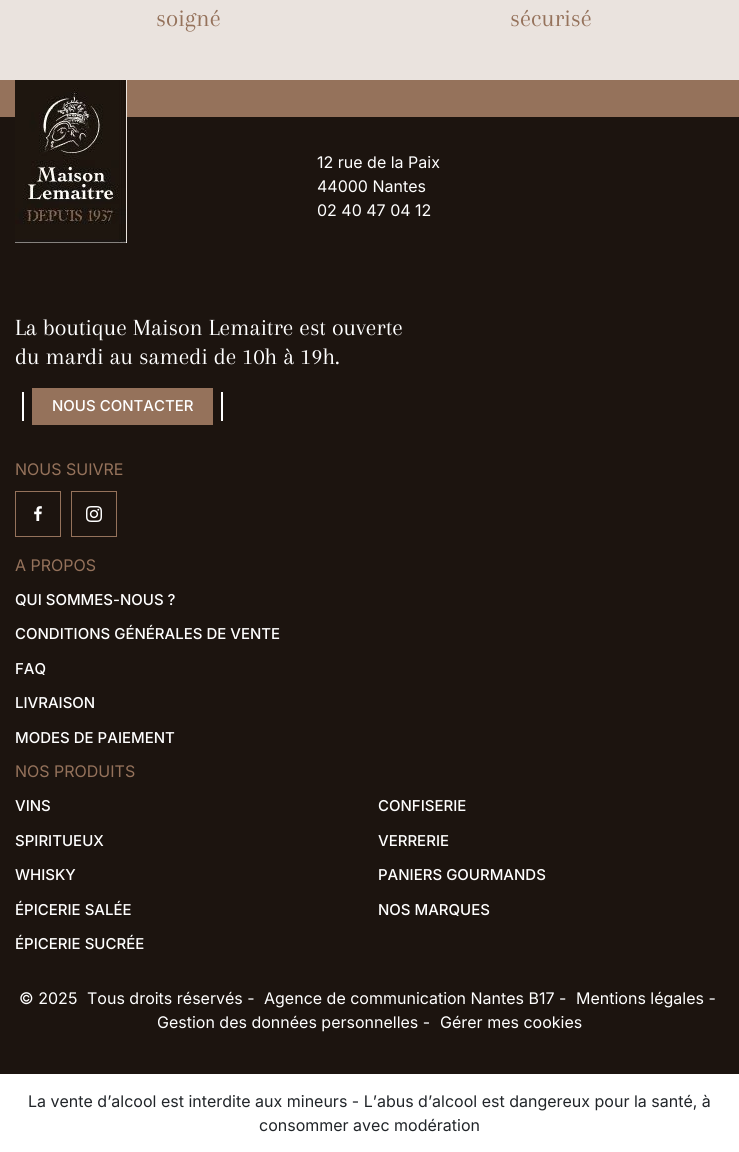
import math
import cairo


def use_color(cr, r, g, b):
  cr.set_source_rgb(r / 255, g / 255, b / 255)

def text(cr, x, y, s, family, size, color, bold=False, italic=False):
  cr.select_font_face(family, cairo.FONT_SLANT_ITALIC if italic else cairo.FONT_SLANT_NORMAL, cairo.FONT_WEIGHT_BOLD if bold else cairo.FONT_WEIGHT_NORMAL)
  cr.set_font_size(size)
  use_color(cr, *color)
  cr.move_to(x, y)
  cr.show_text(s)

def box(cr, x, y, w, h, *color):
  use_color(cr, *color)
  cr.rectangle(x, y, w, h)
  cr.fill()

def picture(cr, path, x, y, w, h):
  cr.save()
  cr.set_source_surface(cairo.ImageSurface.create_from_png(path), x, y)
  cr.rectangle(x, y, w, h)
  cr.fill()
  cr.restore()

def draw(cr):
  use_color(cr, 255, 255, 255)
  cr.paint()
  box(cr, 0, 0, 739, 80, 234, 227, 222)
  box(cr, 0, 117, 739, 957, 28, 20, 15)
  box(cr, 0, 80, 739, 37, 149, 114, 91)
  picture(cr, "img_01.png", 15, 80, 112, 163)
  box(cr, 32, 388, 181, 37, 149, 114, 91)
  box(cr, 22, 392, 2, 29, 255, 255, 255)
  box(cr, 221, 392, 2, 29, 255, 255, 255)
  cr.rectangle(15.5, 491.5, 45, 45)
  use_color(cr, 149, 114, 91)
  cr.set_line_width(1)
  cr.stroke()
  picture(cr, "img_02.png", 34, 506, 8, 15)
  cr.rectangle(71.5, 491.5, 45, 45)
  cr.stroke()
  picture(cr, "img_03.png", 86, 506, 16, 16)
  text(cr, 156, 26, "soigné", "Arapey", 25, (149, 114, 91))
  text(cr, 510, 26, "sécurisé", "Arapey", 25, (149, 114, 91))
  text(cr, 317, 168, "12 rue de la Paix", "Inter", 16, (255, 255, 255))
  text(cr, 317, 192, "44000 Nantes", "Inter", 16, (255, 255, 255))
  text(cr, 317, 216, "02 40 47 04 12", "Inter", 16, (255, 255, 255))
  text(cr, 15, 335, "La boutique Maison Lemaitre est ouverte", "Arapey", 24, (255, 255, 255))
  text(cr, 15, 364, "du mardi au samedi de 10h à 19h.", "Arapey", 24, (255, 255, 255))
  text(cr, 52, 411, "NOUS CONTACTER", "Inter Medium", 15, (255, 255, 255))
  text(cr, 15, 475, "NOUS SUIVRE", "Inter", 16, (149, 114, 91))
  text(cr, 15, 571, "A PROPOS", "Inter", 16, (149, 114, 91))
  text(cr, 15, 605, "QUI SOMMES-NOUS ?", "Inter Medium", 15, (255, 255, 255))
  text(cr, 15, 639, "CONDITIONS GÉNÉRALES DE VENTE", "Inter Medium", 15, (255, 255, 255))
  text(cr, 15, 674, "FAQ", "Inter Medium", 15, (255, 255, 255))
  text(cr, 15, 708, "LIVRAISON", "Inter Medium", 15, (255, 255, 255))
  text(cr, 15, 743, "MODES DE PAIEMENT", "Inter Medium", 15, (255, 255, 255))
  text(cr, 15, 777, "NOS PRODUITS", "Inter", 16, (149, 114, 91))
  text(cr, 15, 811, "VINS", "Inter Medium", 15, (255, 255, 255))
  text(cr, 378, 811, "CONFISERIE", "Inter Medium", 15, (255, 255, 255))
  text(cr, 15, 846, "SPIRITUEUX", "Inter Medium", 15, (255, 255, 255))
  text(cr, 378, 846, "VERRERIE", "Inter Medium", 15, (255, 255, 255))
  text(cr, 15, 880, "WHISKY", "Inter Medium", 15, (255, 255, 255))
  text(cr, 378, 880, "PANIERS GOURMANDS", "Inter Medium", 15, (255, 255, 255))
  text(cr, 15, 915, "ÉPICERIE SALÉE", "Inter Medium", 15, (255, 255, 255))
  text(cr, 378, 915, "NOS MARQUES", "Inter Medium", 15, (255, 255, 255))
  text(cr, 15, 949, "ÉPICERIE SUCRÉE", "Inter Medium", 15, (255, 255, 255))
  text(cr, 19, 1004, "© 2025", "Inter", 16, (255, 255, 255))
  text(cr, 87, 1004, "Tous droits réservés -", "Inter", 16, (255, 255, 255))
  text(cr, 264, 1004, "Agence de communication Nantes B17 -", "Inter", 16, (255, 255, 255))
  text(cr, 576, 1004, "Mentions légales -", "Inter", 16, (255, 255, 255))
  text(cr, 157, 1028, "Gestion des données personnelles -", "Inter", 16, (255, 255, 255))
  text(cr, 440, 1028, "Gérer mes cookies", "Inter", 16, (255, 255, 255))
  text(cr, 28, 1107, "La vente d’alcool est interdite aux mineurs - L’abus d’alcool est dangereux pour la santé, à", "Inter", 16, (33, 37, 41))
  text(cr, 259, 1131, "consommer avec modération", "Inter", 16, (33, 37, 41))


surface = cairo.ImageSurface(cairo.FORMAT_RGB24, 739, 1152)
cr = cairo.Context(surface)
options = cairo.FontOptions()
options.set_hint_metrics(cairo.HINT_METRICS_OFF)
options.set_hint_style(cairo.HINT_STYLE_NONE)
cr.set_font_options(options)
cr.set_miter_limit(4)
draw(cr)
surface.write_to_png("out.png")
